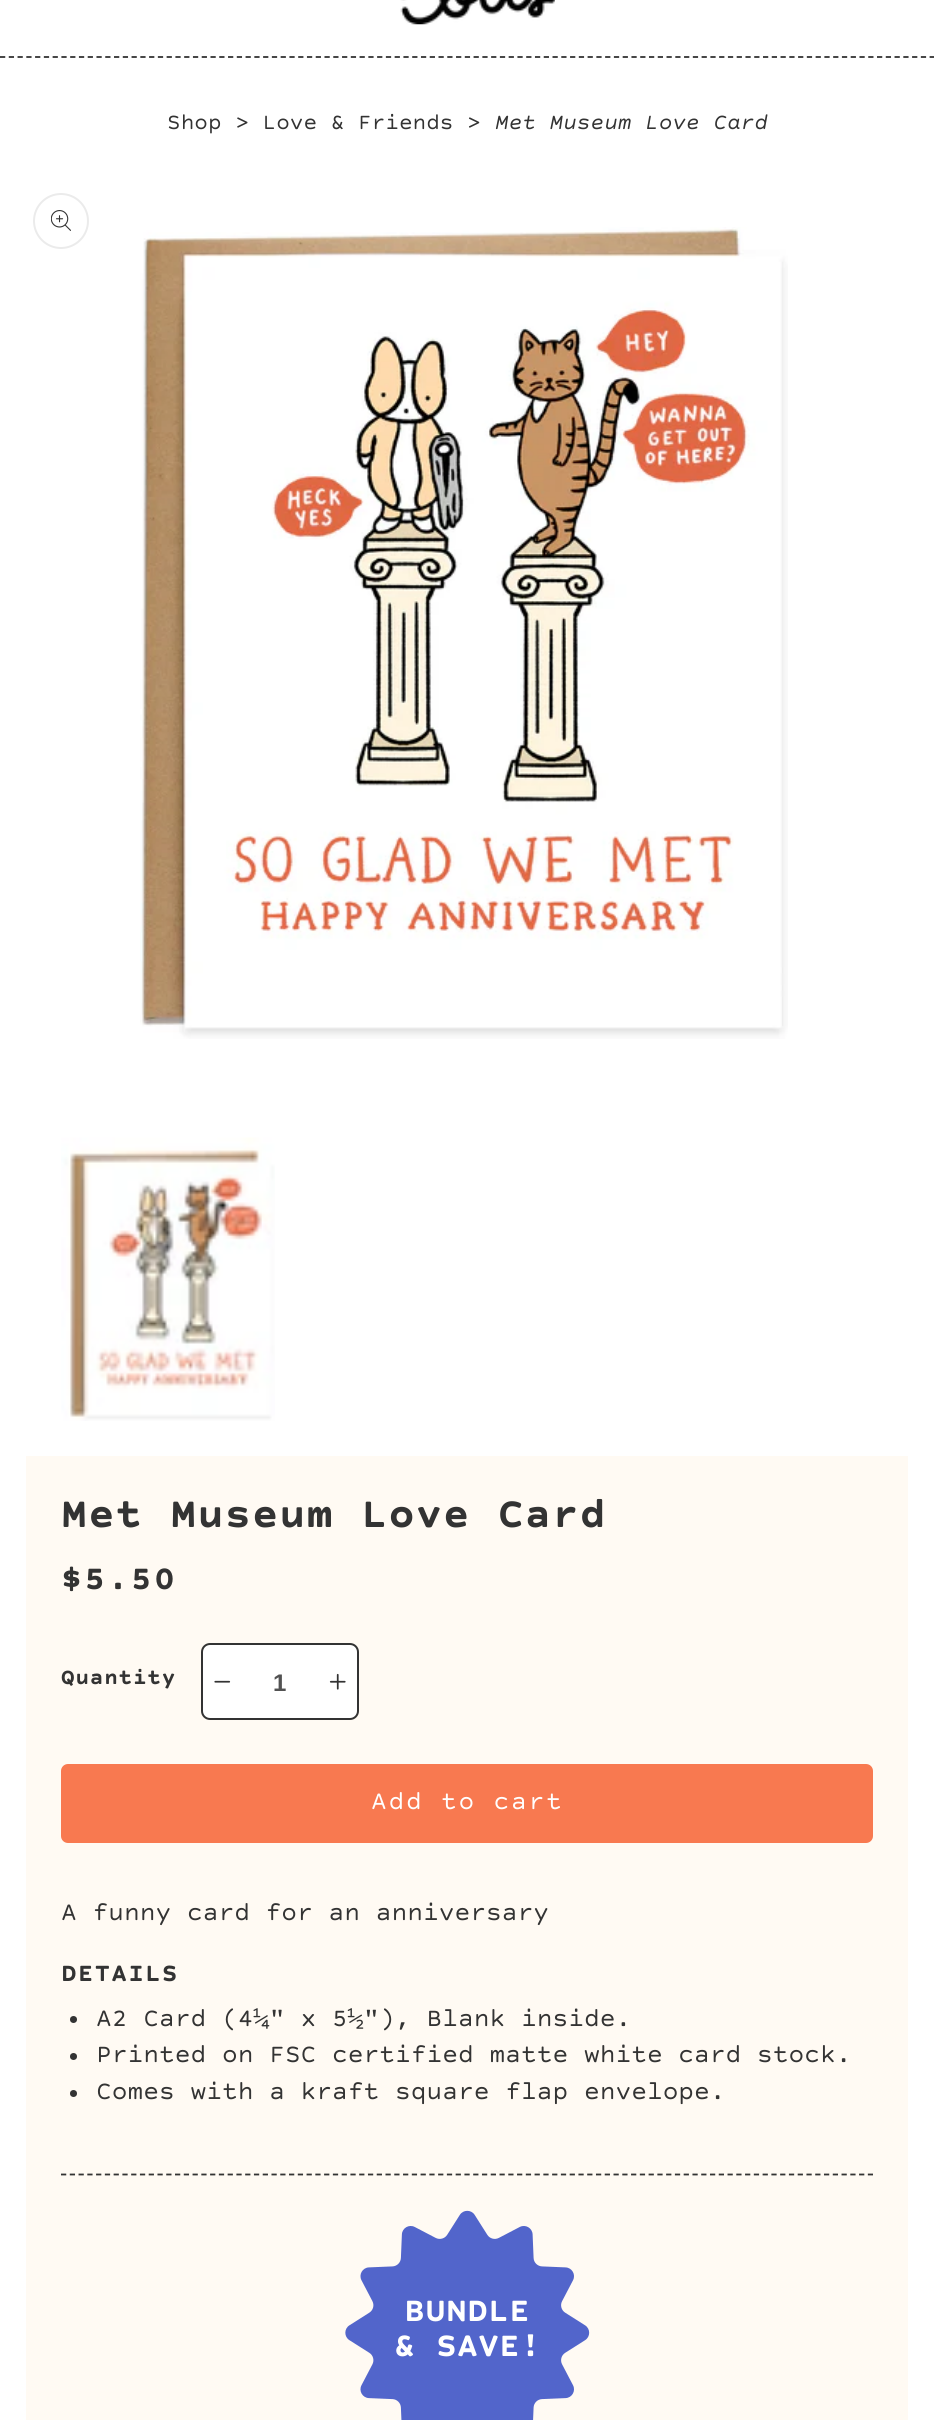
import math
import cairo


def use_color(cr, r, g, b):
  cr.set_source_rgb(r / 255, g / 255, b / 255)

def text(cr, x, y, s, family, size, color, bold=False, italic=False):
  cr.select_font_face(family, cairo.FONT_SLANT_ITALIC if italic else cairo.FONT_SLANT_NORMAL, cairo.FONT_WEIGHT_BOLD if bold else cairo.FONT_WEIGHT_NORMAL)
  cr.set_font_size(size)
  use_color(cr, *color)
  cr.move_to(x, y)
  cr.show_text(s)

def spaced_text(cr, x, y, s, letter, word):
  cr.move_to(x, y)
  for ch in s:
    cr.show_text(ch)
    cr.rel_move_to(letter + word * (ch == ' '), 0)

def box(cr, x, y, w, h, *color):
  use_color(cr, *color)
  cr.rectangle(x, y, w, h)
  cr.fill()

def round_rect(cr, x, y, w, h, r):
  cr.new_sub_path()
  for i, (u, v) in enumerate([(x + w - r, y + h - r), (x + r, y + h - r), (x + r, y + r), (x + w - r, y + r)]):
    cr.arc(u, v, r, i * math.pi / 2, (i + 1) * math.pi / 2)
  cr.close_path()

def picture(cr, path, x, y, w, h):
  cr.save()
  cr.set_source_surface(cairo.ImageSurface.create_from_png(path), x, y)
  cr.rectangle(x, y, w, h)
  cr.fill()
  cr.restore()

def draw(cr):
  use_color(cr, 255, 255, 255)
  cr.paint()
  cr.new_path()
  cr.move_to(0, 57)
  cr.line_to(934.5, 57)
  use_color(cr, 51, 51, 51)
  cr.set_line_width(1.8)
  cr.set_dash([5.25, 3.52])
  cr.stroke()
  picture(cr, "img_01.png", 400, 0, 155, 25)
  cr.arc(61, 221, 27, 0, 2 * math.pi)
  use_color(cr, 235, 235, 235)
  cr.set_line_width(2)
  cr.set_dash([])
  cr.stroke()
  picture(cr, "img_02.png", 51, 210, 20, 21)
  picture(cr, "img_03.png", 140, 227, 648, 812)
  picture(cr, "img_04.png", 61, 1137, 214, 284)
  box(cr, 26, 1456, 882, 964, 255, 250, 243)
  use_color(cr, 255, 255, 255)
  round_rect(cr, 202, 1644, 156, 75, 8)
  cr.fill_preserve()
  use_color(cr, 51, 51, 51)
  cr.stroke()
  picture(cr, "img_05.png", 214, 1680, 17, 3)
  picture(cr, "img_06.png", 329, 1673, 17, 17)
  use_color(cr, 248, 121, 80)
  round_rect(cr, 61, 1764, 812, 79, 7)
  cr.fill()
  use_color(cr, 51, 51, 51)
  cr.arc(73.5, 2019.5, 3.5, 0, 2 * math.pi)
  cr.fill()
  cr.arc(73.5, 2056.5, 3.5, 0, 2 * math.pi)
  cr.fill()
  cr.arc(73.5, 2093.5, 3.5, 0, 2 * math.pi)
  cr.fill()
  cr.new_path()
  cr.move_to(61, 2174.5)
  cr.line_to(873, 2174.5)
  cr.set_line_width(1.8)
  cr.set_dash([5.25, 3.52])
  cr.stroke()
  picture(cr, "img_07.png", 345, 2210, 245, 210)
  text(cr, 167, 129, "Shop > Love & Friends >", "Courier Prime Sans", 22.75, (51, 51, 51))
  text(cr, 495, 129, "Met Museum Love Card", "Courier Prime Sans", 22.75, (51, 51, 51), italic=True)
  cr.select_font_face("Courier Prime Sans", cairo.FONT_SLANT_NORMAL, cairo.FONT_WEIGHT_BOLD)
  cr.set_font_size(43.75)
  spaced_text(cr, 61, 1527, "Met Museum Love Card", 1.05, 0)
  cr.set_font_size(35)
  spaced_text(cr, 61, 1589, "$5.50", 2.25, 0)
  cr.set_font_size(22.75)
  spaced_text(cr, 61, 1684, "Quantity", 0.75, 0)
  text(cr, 273, 1691, "1", "Liberation Sans", 24, (82, 82, 82), bold=True)
  cr.select_font_face("Courier Prime Sans")
  cr.set_font_size(26.25)
  use_color(cr, 255, 255, 255)
  spaced_text(cr, 371, 1809, "Add to cart", 1.75, 0)
  text(cr, 61, 1920, "A funny card for an anniversary", "Courier Prime Sans", 26.25, (51, 51, 51))
  cr.select_font_face("Courier Prime Sans", cairo.FONT_SLANT_NORMAL, cairo.FONT_WEIGHT_BOLD)
  spaced_text(cr, 61, 1981, "DETAILS", 1.05, 0)
  text(cr, 96, 2026, "A2 Card (4¼\" x 5½\"), Blank inside.", "Courier Prime Sans", 26.25, (51, 51, 51))
  text(cr, 96, 2062, "Printed on FSC certified matte white card stock.", "Courier Prime Sans", 26.25, (51, 51, 51))
  text(cr, 96, 2099, "Comes with a kraft square flap envelope.", "Courier Prime Sans", 26.25, (51, 51, 51))
  text(cr, 404, 2321, "BUNDLE", "Courier Prime Sans", 35, (255, 255, 255), bold=True)
  text(cr, 394, 2356, "& SAVE!", "Courier Prime Sans", 35, (255, 255, 255), bold=True)


surface = cairo.ImageSurface(cairo.FORMAT_RGB24, 934, 2420)
cr = cairo.Context(surface)
options = cairo.FontOptions()
options.set_hint_metrics(cairo.HINT_METRICS_OFF)
options.set_hint_style(cairo.HINT_STYLE_NONE)
cr.set_font_options(options)
cr.set_miter_limit(4)
draw(cr)
surface.write_to_png("out.png")
